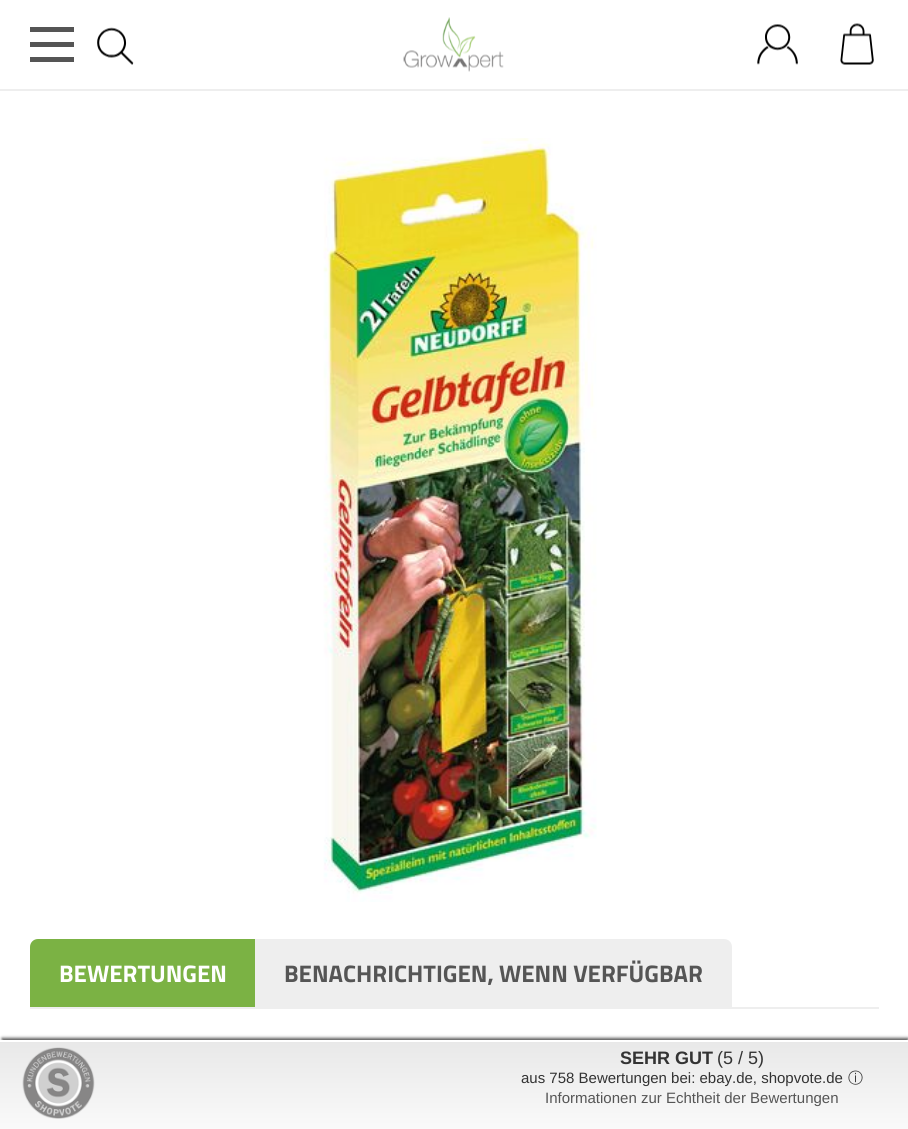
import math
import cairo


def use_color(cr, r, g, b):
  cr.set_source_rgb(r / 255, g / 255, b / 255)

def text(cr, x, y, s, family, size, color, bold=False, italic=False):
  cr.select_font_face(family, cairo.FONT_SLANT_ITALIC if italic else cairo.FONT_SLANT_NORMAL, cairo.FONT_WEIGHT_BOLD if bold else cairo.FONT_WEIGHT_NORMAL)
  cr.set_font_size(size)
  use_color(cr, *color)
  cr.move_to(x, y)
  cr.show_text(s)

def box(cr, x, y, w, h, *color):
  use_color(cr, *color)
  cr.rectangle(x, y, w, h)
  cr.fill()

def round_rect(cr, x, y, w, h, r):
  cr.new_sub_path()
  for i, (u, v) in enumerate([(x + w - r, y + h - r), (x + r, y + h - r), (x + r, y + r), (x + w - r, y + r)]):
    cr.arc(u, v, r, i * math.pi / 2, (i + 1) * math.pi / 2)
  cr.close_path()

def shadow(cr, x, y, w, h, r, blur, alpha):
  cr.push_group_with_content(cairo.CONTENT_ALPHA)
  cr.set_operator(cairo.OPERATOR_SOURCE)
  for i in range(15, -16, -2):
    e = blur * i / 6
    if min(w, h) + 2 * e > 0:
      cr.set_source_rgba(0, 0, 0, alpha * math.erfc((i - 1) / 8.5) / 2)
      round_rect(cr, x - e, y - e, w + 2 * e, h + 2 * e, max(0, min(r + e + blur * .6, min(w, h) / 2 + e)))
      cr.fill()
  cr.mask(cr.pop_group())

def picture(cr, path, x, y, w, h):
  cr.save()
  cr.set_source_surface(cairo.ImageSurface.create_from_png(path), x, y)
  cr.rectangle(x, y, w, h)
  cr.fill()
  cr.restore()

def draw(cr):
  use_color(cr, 255, 255, 255)
  cr.paint()
  box(cr, 0, 89, 908, 2, 238, 238, 238)
  box(cr, 30, 27, 44, 5, 85, 85, 85)
  box(cr, 30, 42, 44, 5, 85, 85, 85)
  box(cr, 30, 57, 44, 5, 85, 85, 85)
  picture(cr, "img_01.png", 97, 27, 37, 38)
  picture(cr, "img_02.png", 403, 17, 101, 55)
  picture(cr, "img_03.png", 757, 24, 41, 41)
  picture(cr, "img_04.png", 840, 23, 34, 42)
  picture(cr, "img_05.png", 323, 138, 274, 764)
  box(cr, 30, 1007, 849, 2, 238, 238, 238)
  use_color(cr, 123, 178, 68)
  cr.new_path()
  cr.move_to(38, 939)
  cr.line_to(255, 939)
  cr.line_to(255, 1007)
  cr.line_to(30, 1007)
  cr.line_to(30, 947)
  cr.curve_to(30, 942.5, 33.5, 939, 38, 939)
  cr.close_path()
  cr.fill()
  use_color(cr, 238, 238, 238)
  cr.new_path()
  cr.move_to(255, 939)
  cr.line_to(724, 939)
  cr.curve_to(728.5, 939, 732, 942.5, 732, 947)
  cr.line_to(732, 1007)
  cr.line_to(255, 1007)
  cr.close_path()
  cr.fill()
  use_color(cr, 0, 0, 0)
  shadow(cr, 2, 1038, 906, 87, 0, 1.5, 0.65)
  gradient = cairo.LinearGradient(455, 1041, 455, 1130)
  gradient.add_color_stop_rgba(0, 0.941, 0.941, 0.941, 1)
  gradient.add_color_stop_rgba(0, 0.91, 0.91, 0.91, 1)
  gradient.add_color_stop_rgba(1, 0.98, 0.98, 0.98, 1)
  cr.set_source(gradient)
  cr.rectangle(0, 1042, 908, 87)
  cr.fill()
  box(cr, 0, 1040, 908, 2, 255, 255, 255)
  picture(cr, "img_06.png", 22, 1047, 73, 72)
  text(cr, 59, 982, "BEWERTUNGEN", "Titillium Web", 24, (255, 255, 255), bold=True)
  text(cr, 284, 982, "BENACHRICHTIGEN, WENN VERFÜGBAR", "Titillium Web", 24, (85, 85, 85), bold=True)
  text(cr, 620, 1064, "SEHR GUT", "Liberation Sans", 18, (51, 51, 51), bold=True)
  text(cr, 717, 1064, "(5 / 5)", "Liberation Sans", 18, (51, 51, 51))
  text(cr, 521, 1083, "aus 758 Bewertungen bei: ebay.de, shopvote.de", "Liberation Sans", 15, (51, 51, 51))
  text(cr, 848, 1083, "ⓘ", "WenQuanYi Zen Hei Medium", 15, (51, 51, 51))
  text(cr, 545, 1103, "Informationen zur Echtheit der Bewertungen", "Liberation Sans", 15, (85, 85, 85))


surface = cairo.ImageSurface(cairo.FORMAT_RGB24, 908, 1129)
cr = cairo.Context(surface)
options = cairo.FontOptions()
options.set_hint_metrics(cairo.HINT_METRICS_OFF)
options.set_hint_style(cairo.HINT_STYLE_NONE)
cr.set_font_options(options)
cr.set_miter_limit(4)
draw(cr)
surface.write_to_png("out.png")
